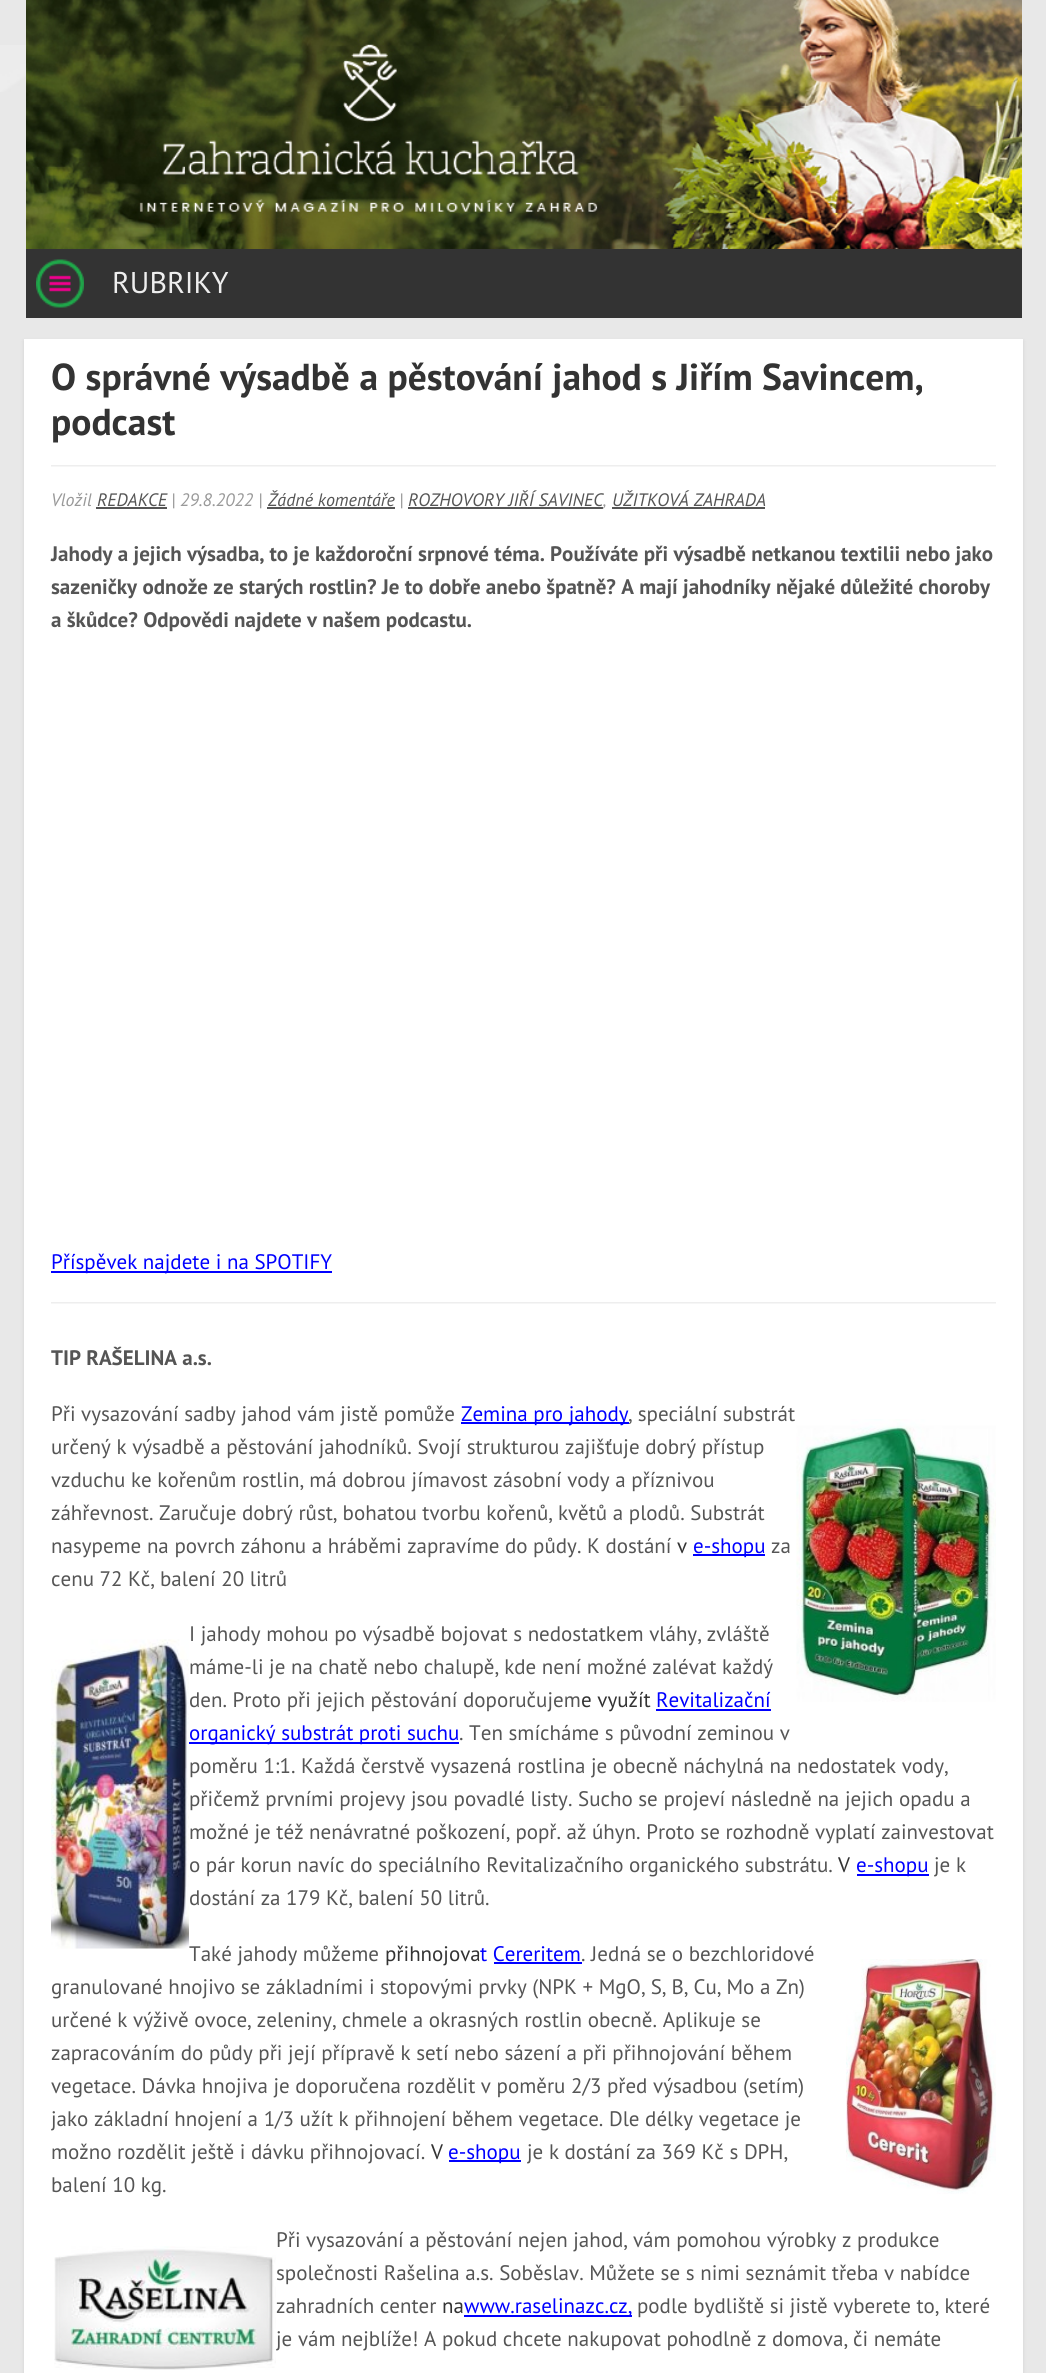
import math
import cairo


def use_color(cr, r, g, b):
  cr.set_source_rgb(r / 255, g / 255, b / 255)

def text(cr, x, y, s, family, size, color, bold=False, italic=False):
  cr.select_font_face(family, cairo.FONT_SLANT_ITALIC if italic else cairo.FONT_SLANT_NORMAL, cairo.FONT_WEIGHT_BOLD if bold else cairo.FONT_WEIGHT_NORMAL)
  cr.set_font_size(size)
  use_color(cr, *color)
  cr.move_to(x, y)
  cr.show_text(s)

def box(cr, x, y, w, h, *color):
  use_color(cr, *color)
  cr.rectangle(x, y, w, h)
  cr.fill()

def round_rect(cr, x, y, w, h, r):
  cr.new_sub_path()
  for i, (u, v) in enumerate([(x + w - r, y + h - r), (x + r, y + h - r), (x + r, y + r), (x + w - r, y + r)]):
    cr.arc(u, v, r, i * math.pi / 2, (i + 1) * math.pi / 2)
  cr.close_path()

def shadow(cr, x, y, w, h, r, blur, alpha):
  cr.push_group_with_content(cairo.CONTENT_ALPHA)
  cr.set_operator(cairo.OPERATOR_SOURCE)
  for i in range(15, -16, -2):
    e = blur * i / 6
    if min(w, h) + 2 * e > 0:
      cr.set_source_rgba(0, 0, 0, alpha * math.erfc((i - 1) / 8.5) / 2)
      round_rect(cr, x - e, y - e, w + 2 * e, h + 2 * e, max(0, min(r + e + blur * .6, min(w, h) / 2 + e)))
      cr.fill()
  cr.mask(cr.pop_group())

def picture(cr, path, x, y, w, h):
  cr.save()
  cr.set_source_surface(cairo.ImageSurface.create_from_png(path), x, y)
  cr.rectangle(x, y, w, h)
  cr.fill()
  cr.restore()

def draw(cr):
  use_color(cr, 232, 232, 232)
  cr.paint()
  picture(cr, "img_01.png", 0, 45, 26, 47)
  picture(cr, "img_02.png", 26, 0, 996, 249)
  box(cr, 26, 249, 996, 69, 51, 51, 51)
  picture(cr, "img_03.png", 36, 259, 48, 49)
  use_color(cr, 0, 0, 0)
  shadow(cr, 24, 341, 999, 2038, 0, 2, 0.1)
  box(cr, 24, 339, 999, 2034, 255, 255, 255)
  picture(cr, "img_04.png", 51, 465, 945, 2)
  box(cr, 96, 507, 71, 2, 85, 85, 85)
  box(cr, 267, 507, 128, 2, 85, 85, 85)
  box(cr, 408, 507, 195, 2, 85, 85, 85)
  box(cr, 612, 507, 153, 2, 85, 85, 85)
  box(cr, 51, 1271, 281, 2, 0, 0, 255)
  picture(cr, "img_04.png", 51, 1302, 945, 2)
  box(cr, 461, 1422, 168, 2, 0, 0, 255)
  picture(cr, "img_05.png", 796, 1419, 200, 283)
  box(cr, 693, 1554, 72, 2, 0, 0, 255)
  picture(cr, "img_06.png", 51, 1639, 138, 310)
  box(cr, 656, 1709, 115, 2, 0, 0, 255)
  box(cr, 189, 1742, 270, 2, 0, 0, 255)
  box(cr, 857, 1874, 72, 2, 0, 0, 255)
  box(cr, 494, 1962, 88, 2, 0, 0, 255)
  picture(cr, "img_07.png", 846, 1959, 150, 235)
  box(cr, 449, 2160, 72, 2, 0, 0, 255)
  picture(cr, "img_08.png", 54, 2246, 222, 124)
  box(cr, 464, 2315, 168, 2, 0, 0, 255)
  text(cr, 112, 293, "RUBRIKY", "PT Sans", 30, (238, 238, 238))
  text(cr, 51, 390, "O správné výsadbě a pěstování jahod s Jiřím Savincem,", "PT Sans", 37.5, (51, 51, 51), bold=True)
  text(cr, 51, 435, "podcast", "PT Sans", 37.5, (51, 51, 51), bold=True)
  text(cr, 51, 506, "Vložil", "PT Sans", 18, (153, 153, 153), italic=True)
  text(cr, 97, 506, "REDAKCE", "PT Sans", 18, (85, 85, 85), italic=True)
  text(cr, 171, 506, "| 29.8.2022 |", "PT Sans", 18, (153, 153, 153), italic=True)
  text(cr, 268, 506, "Žádné komentáře", "PT Sans", 18, (85, 85, 85), italic=True)
  text(cr, 399, 506, "|", "PT Sans", 18, (153, 153, 153), italic=True)
  text(cr, 408, 506, "ROZHOVORY JIŘÍ SAVINEC", "PT Sans", 18, (85, 85, 85), italic=True)
  text(cr, 612, 506, "UŽITKOVÁ ZAHRADA", "PT Sans", 18, (85, 85, 85), italic=True)
  text(cr, 603, 506, ",", "PT Sans", 18, (153, 153, 153), italic=True)
  text(cr, 51, 561, "Jahody a jejich výsadba, to je každoroční srpnové téma. Používáte při výsadbě netkanou textilii nebo jako", "PT Sans", 21, (85, 85, 85), bold=True)
  text(cr, 51, 594, "sazeničky odnože ze starých rostlin? Je to dobře anebo špatně? A mají jahodníky nějaké důležité choroby", "PT Sans", 21, (85, 85, 85), bold=True)
  text(cr, 51, 627, "a škůdce? Odpovědi najdete v našem podcastu.", "PT Sans", 21, (85, 85, 85), bold=True)
  text(cr, 51, 1269, "Příspěvek najdete i na SPOTIFY", "PT Sans", 21, (0, 0, 255))
  text(cr, 51, 1365, "TIP RAŠELINA a.s.", "PT Sans", 21, (85, 85, 85), bold=True)
  text(cr, 51, 1421, "Při vysazování sadby jahod vám jistě pomůže", "PT Sans", 21, (85, 85, 85))
  text(cr, 461, 1421, "Zemina pro jahody", "PT Sans", 21, (0, 0, 255))
  text(cr, 628, 1421, ", speciální substrát", "PT Sans", 21, (85, 85, 85))
  text(cr, 51, 1454, "určený k výsadbě a pěstování jahodníků. Svojí strukturou zajišťuje dobrý přístup", "PT Sans", 21, (85, 85, 85))
  text(cr, 51, 1487, "vzduchu ke kořenům rostlin, má dobrou jímavost zásobní vody a příznivou", "PT Sans", 21, (85, 85, 85))
  text(cr, 51, 1520, "záhřevnost. Zaručuje dobrý růst, bohatou tvorbu kořenů, květů a plodů. Substrát", "PT Sans", 21, (85, 85, 85))
  text(cr, 51, 1553, "nasypeme na povrch záhonu a hráběmi zapravíme do půdy. K dostání", "PT Sans", 21, (85, 85, 85))
  text(cr, 677, 1553, "v", "PT Sans", 21, (51, 51, 51))
  text(cr, 693, 1553, "e-shopu", "PT Sans", 21, (0, 0, 255))
  text(cr, 771, 1553, "za", "PT Sans", 21, (85, 85, 85))
  text(cr, 51, 1586, "cenu 72 Kč, balení 20 litrů", "PT Sans", 21, (85, 85, 85))
  text(cr, 189, 1641, "I jahody mohou po výsadbě bojovat s nedostatkem vláhy, zvláště", "PT Sans", 21, (85, 85, 85))
  text(cr, 189, 1674, "máme-li je na chatě nebo chalupě, kde není možné zalévat každý", "PT Sans", 21, (85, 85, 85))
  text(cr, 189, 1707, "den. Proto při jejich pěstování doporučujem", "PT Sans", 21, (85, 85, 85))
  text(cr, 581, 1707, "e využít", "PT Sans", 21, (51, 51, 51))
  text(cr, 656, 1707, "Revitalizační", "PT Sans", 21, (0, 0, 255))
  text(cr, 189, 1740, "organický substrát proti suchu", "PT Sans", 21, (0, 0, 255))
  text(cr, 459, 1740, ". Ten smícháme s původní zeminou v", "PT Sans", 21, (85, 85, 85))
  text(cr, 189, 1773, "poměru 1:1. Každá čerstvě vysazená rostlina je obecně náchylná na nedostatek vody,", "PT Sans", 21, (85, 85, 85))
  text(cr, 189, 1806, "přičemž prvními projevy jsou povadlé listy. Sucho se projeví následně na jejich opadu a", "PT Sans", 21, (85, 85, 85))
  text(cr, 189, 1839, "možné je též nenávratné poškození, popř. až úhyn. Proto se rozhodně vyplatí zainvestovat", "PT Sans", 21, (85, 85, 85))
  text(cr, 189, 1872, "o pár korun navíc do speciálního Revitalizačního organického substrátu.", "PT Sans", 21, (85, 85, 85))
  text(cr, 838, 1872, "V", "PT Sans", 21, (51, 51, 51))
  text(cr, 856, 1872, "e-shopu", "PT Sans", 21, (0, 0, 255))
  text(cr, 934, 1872, "je k", "PT Sans", 21, (85, 85, 85))
  text(cr, 189, 1905, "dostání za 179 Kč, balení 50 litrů.", "PT Sans", 21, (85, 85, 85))
  text(cr, 189, 1961, "Také jahody můžeme", "PT Sans", 21, (85, 85, 85))
  text(cr, 385, 1961, "přihnojova", "PT Sans", 21, (51, 51, 51))
  text(cr, 480, 1961, "t Cereritem", "PT Sans", 21, (0, 0, 255))
  text(cr, 581, 1961, ". Jedná se o bezchloridové", "PT Sans", 21, (85, 85, 85))
  text(cr, 51, 1994, "granulované hnojivo se základními i stopovými prvky (NPK + MgO, S, B, Cu, Mo a Zn)", "PT Sans", 21, (85, 85, 85))
  text(cr, 51, 2027, "určené k výživě ovoce, zeleniny, chmele a okrasných rostlin obecně. Aplikuje se", "PT Sans", 21, (85, 85, 85))
  text(cr, 51, 2060, "zapracováním do půdy při její přípravě k setí nebo sázení a při přihnojování během", "PT Sans", 21, (85, 85, 85))
  text(cr, 51, 2093, "vegetace. Dávka hnojiva je doporučena rozdělit v poměru 2/3 před výsadbou (setím)", "PT Sans", 21, (85, 85, 85))
  text(cr, 51, 2126, "jako základní hnojení a 1/3 užít k přihnojení během vegetace. Dle délky vegetace je", "PT Sans", 21, (85, 85, 85))
  text(cr, 51, 2159, "možno rozdělit ještě i dávku přihnojovací.", "PT Sans", 21, (85, 85, 85))
  text(cr, 431, 2159, "V", "PT Sans", 21, (51, 51, 51))
  text(cr, 448, 2159, "e-shopu", "PT Sans", 21, (0, 0, 255))
  text(cr, 527, 2159, "je k dostání za 369 Kč s DPH,", "PT Sans", 21, (85, 85, 85))
  text(cr, 51, 2192, "balení 10 kg.", "PT Sans", 21, (85, 85, 85))
  text(cr, 276, 2247, "Při vysazování a pěstování nejen jahod, vám pomohou výrobky z produkce", "PT Sans", 21, (85, 85, 85))
  text(cr, 276, 2280, "společnosti Rašelina a.s. Soběslav. Můžete se s nimi seznámit třeba v nabídce", "PT Sans", 21, (85, 85, 85))
  text(cr, 276, 2313, "zahradních center", "PT Sans", 21, (85, 85, 85))
  text(cr, 442, 2313, "na", "PT Sans", 21, (51, 51, 51))
  text(cr, 464, 2313, "www.raselinazc.cz,", "PT Sans", 21, (0, 0, 255))
  text(cr, 637, 2313, "podle bydliště si jistě vyberete to, které", "PT Sans", 21, (85, 85, 85))
  text(cr, 276, 2346, "je vám nejblíže! A pokud chcete nakupovat pohodlně z domova, či nemáte", "PT Sans", 21, (85, 85, 85))


surface = cairo.ImageSurface(cairo.FORMAT_RGB24, 1046, 2373)
cr = cairo.Context(surface)
options = cairo.FontOptions()
options.set_hint_metrics(cairo.HINT_METRICS_OFF)
options.set_hint_style(cairo.HINT_STYLE_NONE)
cr.set_font_options(options)
cr.set_miter_limit(4)
draw(cr)
surface.write_to_png("out.png")
